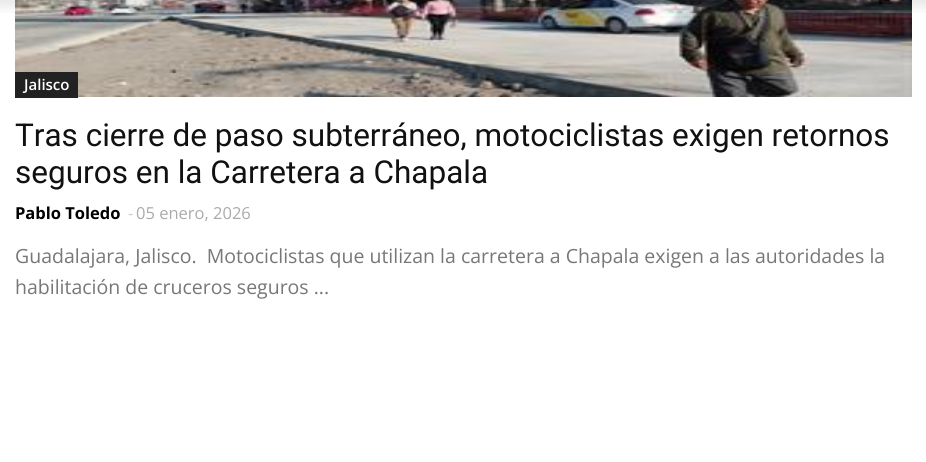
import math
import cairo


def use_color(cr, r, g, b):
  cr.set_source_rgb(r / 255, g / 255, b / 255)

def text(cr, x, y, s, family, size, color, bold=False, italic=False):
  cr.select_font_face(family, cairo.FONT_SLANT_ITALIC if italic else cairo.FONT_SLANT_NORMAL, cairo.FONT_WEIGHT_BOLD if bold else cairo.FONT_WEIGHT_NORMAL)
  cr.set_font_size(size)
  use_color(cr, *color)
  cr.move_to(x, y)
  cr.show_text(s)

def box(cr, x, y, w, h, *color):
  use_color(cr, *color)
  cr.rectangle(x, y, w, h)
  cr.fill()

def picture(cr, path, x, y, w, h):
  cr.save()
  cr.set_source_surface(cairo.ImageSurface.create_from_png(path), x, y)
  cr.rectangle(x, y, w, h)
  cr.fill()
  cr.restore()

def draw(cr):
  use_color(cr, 255, 255, 255)
  cr.paint()
  picture(cr, "img_02.png", 15, 0, 897, 97)
  picture(cr, "img_01.png", 0, 0, 926, 13)
  box(cr, 15, 72, 63, 26, 34, 34, 34)
  text(cr, 24, 90, "Jalisco", "Open Sans SemiBold", 15, (255, 255, 255))
  text(cr, 15, 146, "Tras cierre de paso subterráneo, motociclistas exigen retornos", "Roboto", 31.5, (17, 17, 17))
  text(cr, 15, 183, "seguros en la Carretera a Chapala", "Roboto", 31.5, (17, 17, 17))
  text(cr, 15, 219, "Pablo Toledo", "Open Sans", 16.5, (0, 0, 0), bold=True)
  text(cr, 128, 219, "-", "Open Sans", 16.5, (204, 204, 204))
  text(cr, 136, 219, "05 enero, 2026", "Open Sans", 16.5, (170, 170, 170))
  text(cr, 15, 263, "Guadalajara, Jalisco.  Motociclistas que utilizan la carretera a Chapala exigen a las autoridades la", "Open Sans", 19.5, (119, 119, 119))
  text(cr, 15, 294, "habilitación de cruceros seguros ...", "Open Sans", 19.5, (119, 119, 119))


surface = cairo.ImageSurface(cairo.FORMAT_RGB24, 926, 462)
cr = cairo.Context(surface)
options = cairo.FontOptions()
options.set_hint_metrics(cairo.HINT_METRICS_OFF)
options.set_hint_style(cairo.HINT_STYLE_NONE)
cr.set_font_options(options)
cr.set_miter_limit(4)
draw(cr)
surface.write_to_png("out.png")
